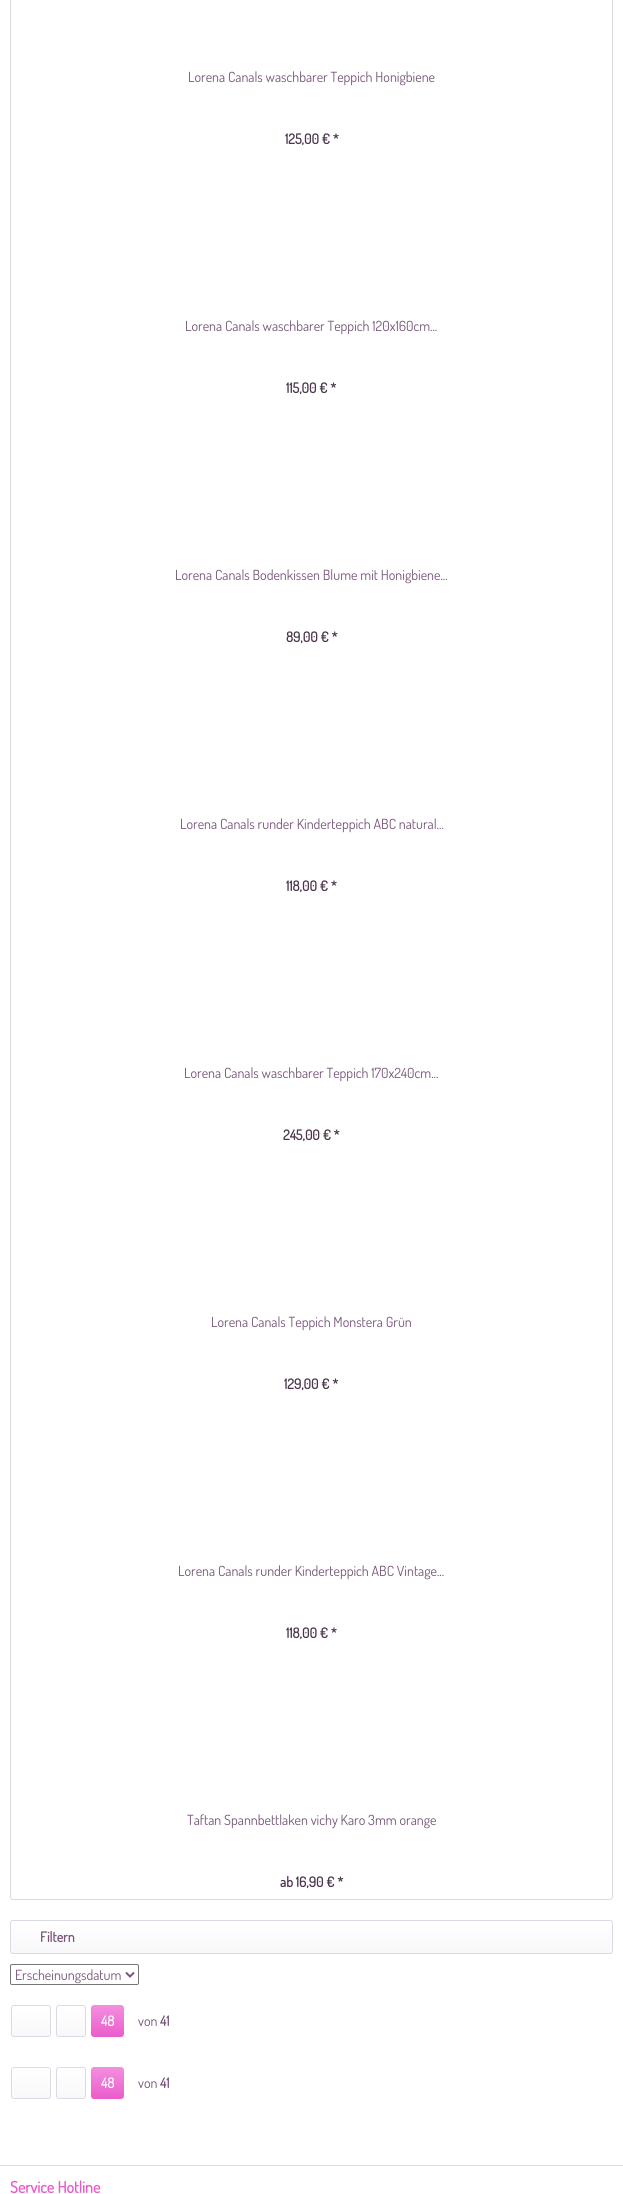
import math
import cairo


def use_color(cr, r, g, b):
  cr.set_source_rgb(r / 255, g / 255, b / 255)

def text(cr, x, y, s, family, size, color, bold=False, italic=False):
  cr.select_font_face(family, cairo.FONT_SLANT_ITALIC if italic else cairo.FONT_SLANT_NORMAL, cairo.FONT_WEIGHT_BOLD if bold else cairo.FONT_WEIGHT_NORMAL)
  cr.set_font_size(size)
  use_color(cr, *color)
  cr.move_to(x, y)
  cr.show_text(s)

def box(cr, x, y, w, h, *color):
  use_color(cr, *color)
  cr.rectangle(x, y, w, h)
  cr.fill()

def round_rect(cr, x, y, w, h, r):
  cr.new_sub_path()
  for i, (u, v) in enumerate([(x + w - r, y + h - r), (x + r, y + h - r), (x + r, y + r), (x + w - r, y + r)]):
    cr.arc(u, v, r, i * math.pi / 2, (i + 1) * math.pi / 2)
  cr.close_path()

def draw(cr):
  use_color(cr, 255, 255, 255)
  cr.paint()
  round_rect(cr, 10.5, -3.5, 602, 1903, 2.5)
  use_color(cr, 218, 218, 229)
  cr.set_line_width(1)
  cr.stroke()
  gradient = cairo.LinearGradient(312, 1921, 312, 1953)
  gradient.add_color_stop_rgba(0, 1, 1, 1, 1)
  gradient.add_color_stop_rgba(1, 0.973, 0.973, 0.98, 1)
  cr.set_source(gradient)
  round_rect(cr, 11, 1921, 601, 32, 2)
  cr.fill()
  round_rect(cr, 10.5, 1920.5, 602, 33, 2.5)
  use_color(cr, 218, 218, 229)
  cr.stroke()
  round_rect(cr, 10.5, 1964.5, 128, 20, 1.5)
  use_color(cr, 118, 118, 118)
  cr.stroke()
  cr.new_path()
  cr.move_to(126, 1972.5)
  cr.line_to(130, 1976.5)
  cr.line_to(134, 1972.5)
  use_color(cr, 119, 86, 122)
  cr.set_line_width(2)
  cr.stroke()
  gradient = cairo.LinearGradient(31, 2006, 31, 2036)
  gradient.add_color_stop_rgba(0, 1, 1, 1, 1)
  gradient.add_color_stop_rgba(1, 0.973, 0.973, 0.98, 1)
  cr.set_source(gradient)
  round_rect(cr, 12, 2006, 38, 30, 2)
  cr.fill()
  round_rect(cr, 11.5, 2005.5, 39, 31, 2.5)
  use_color(cr, 218, 218, 229)
  cr.set_line_width(1)
  cr.stroke()
  gradient = cairo.LinearGradient(71, 2006, 71, 2036)
  gradient.add_color_stop_rgba(0, 1, 1, 1, 1)
  gradient.add_color_stop_rgba(1, 0.973, 0.973, 0.98, 1)
  cr.set_source(gradient)
  round_rect(cr, 57, 2006, 28, 30, 2)
  cr.fill()
  round_rect(cr, 56.5, 2005.5, 29, 31, 2.5)
  use_color(cr, 218, 218, 229)
  cr.stroke()
  gradient = cairo.LinearGradient(108, 2005, 108, 2037)
  gradient.add_color_stop_rgba(0, 0.957, 0.561, 0.875, 1)
  gradient.add_color_stop_rgba(1, 0.918, 0.361, 0.8, 1)
  cr.set_source(gradient)
  round_rect(cr, 91, 2005, 33, 32, 3)
  cr.fill()
  gradient = cairo.LinearGradient(31, 2068, 31, 2098)
  gradient.add_color_stop_rgba(0, 1, 1, 1, 1)
  gradient.add_color_stop_rgba(1, 0.973, 0.973, 0.98, 1)
  cr.set_source(gradient)
  round_rect(cr, 12, 2068, 38, 30, 2)
  cr.fill()
  round_rect(cr, 11.5, 2067.5, 39, 31, 2.5)
  use_color(cr, 218, 218, 229)
  cr.stroke()
  gradient = cairo.LinearGradient(71, 2068, 71, 2098)
  gradient.add_color_stop_rgba(0, 1, 1, 1, 1)
  gradient.add_color_stop_rgba(1, 0.973, 0.973, 0.98, 1)
  cr.set_source(gradient)
  round_rect(cr, 57, 2068, 28, 30, 2)
  cr.fill()
  round_rect(cr, 56.5, 2067.5, 29, 31, 2.5)
  use_color(cr, 218, 218, 229)
  cr.stroke()
  gradient = cairo.LinearGradient(108, 2067, 108, 2099)
  gradient.add_color_stop_rgba(0, 0.957, 0.561, 0.875, 1)
  gradient.add_color_stop_rgba(1, 0.918, 0.361, 0.8, 1)
  cr.set_source(gradient)
  round_rect(cr, 91, 2067, 33, 32, 3)
  cr.fill()
  box(cr, 0, 2165, 623, 1, 218, 218, 229)
  text(cr, 188, 82, "Lorena Canals waschbarer Teppich Honigbiene", "Dosis", 14, (119, 86, 122))
  text(cr, 285, 144, "125,00 € *", "Dosis", 14, (75, 54, 77), bold=True)
  text(cr, 185, 331, "Lorena Canals waschbarer Teppich 120x160cm...", "Dosis", 14, (119, 86, 122))
  text(cr, 286, 393, "115,00 € *", "Dosis", 14, (75, 54, 77), bold=True)
  text(cr, 175, 580, "Lorena Canals Bodenkissen Blume mit Honigbiene...", "Dosis", 14, (119, 86, 122))
  text(cr, 286, 642, "89,00 € *", "Dosis", 14, (75, 54, 77), bold=True)
  text(cr, 180, 829, "Lorena Canals runder Kinderteppich ABC natural...", "Dosis", 14, (119, 86, 122))
  text(cr, 286, 891, "118,00 € *", "Dosis", 14, (75, 54, 77), bold=True)
  text(cr, 184, 1078, "Lorena Canals waschbarer Teppich 170x240cm...", "Dosis", 14, (119, 86, 122))
  text(cr, 283, 1140, "245,00 € *", "Dosis", 14, (75, 54, 77), bold=True)
  text(cr, 211, 1327, "Lorena Canals Teppich Monstera Grün", "Dosis", 14, (119, 86, 122))
  text(cr, 284, 1389, "129,00 € *", "Dosis", 14, (75, 54, 77), bold=True)
  text(cr, 178, 1576, "Lorena Canals runder Kinderteppich ABC Vintage...", "Dosis", 14, (119, 86, 122))
  text(cr, 286, 1638, "118,00 € *", "Dosis", 14, (75, 54, 77), bold=True)
  text(cr, 187, 1825, "Taftan Spannbettlaken vichy Karo 3mm orange", "Dosis", 14, (119, 86, 122))
  text(cr, 280, 1887, "ab 16,90 € *", "Dosis", 14, (75, 54, 77), bold=True)
  text(cr, 40, 1942, "Filtern", "Dosis", 14, (119, 86, 122), bold=True)
  text(cr, 15, 1980, "Erscheinungsdatum", "Dosis", 14, (119, 86, 122))
  text(cr, 101, 2026, "48", "Dosis", 14, (255, 255, 255), bold=True)
  text(cr, 138, 2026, "von", "Dosis", 14, (119, 86, 122))
  text(cr, 160, 2026, "41", "Dosis", 14, (119, 86, 122), bold=True)
  text(cr, 101, 2088, "48", "Dosis", 14, (255, 255, 255), bold=True)
  text(cr, 138, 2088, "von", "Dosis", 14, (119, 86, 122))
  text(cr, 160, 2088, "41", "Dosis", 14, (119, 86, 122), bold=True)
  text(cr, 10, 2193, "Service Hotline", "Dosis", 16, (234, 92, 204), bold=True)


surface = cairo.ImageSurface(cairo.FORMAT_RGB24, 623, 2194)
cr = cairo.Context(surface)
options = cairo.FontOptions()
options.set_hint_metrics(cairo.HINT_METRICS_OFF)
options.set_hint_style(cairo.HINT_STYLE_NONE)
cr.set_font_options(options)
cr.set_miter_limit(4)
draw(cr)
surface.write_to_png("out.png")
